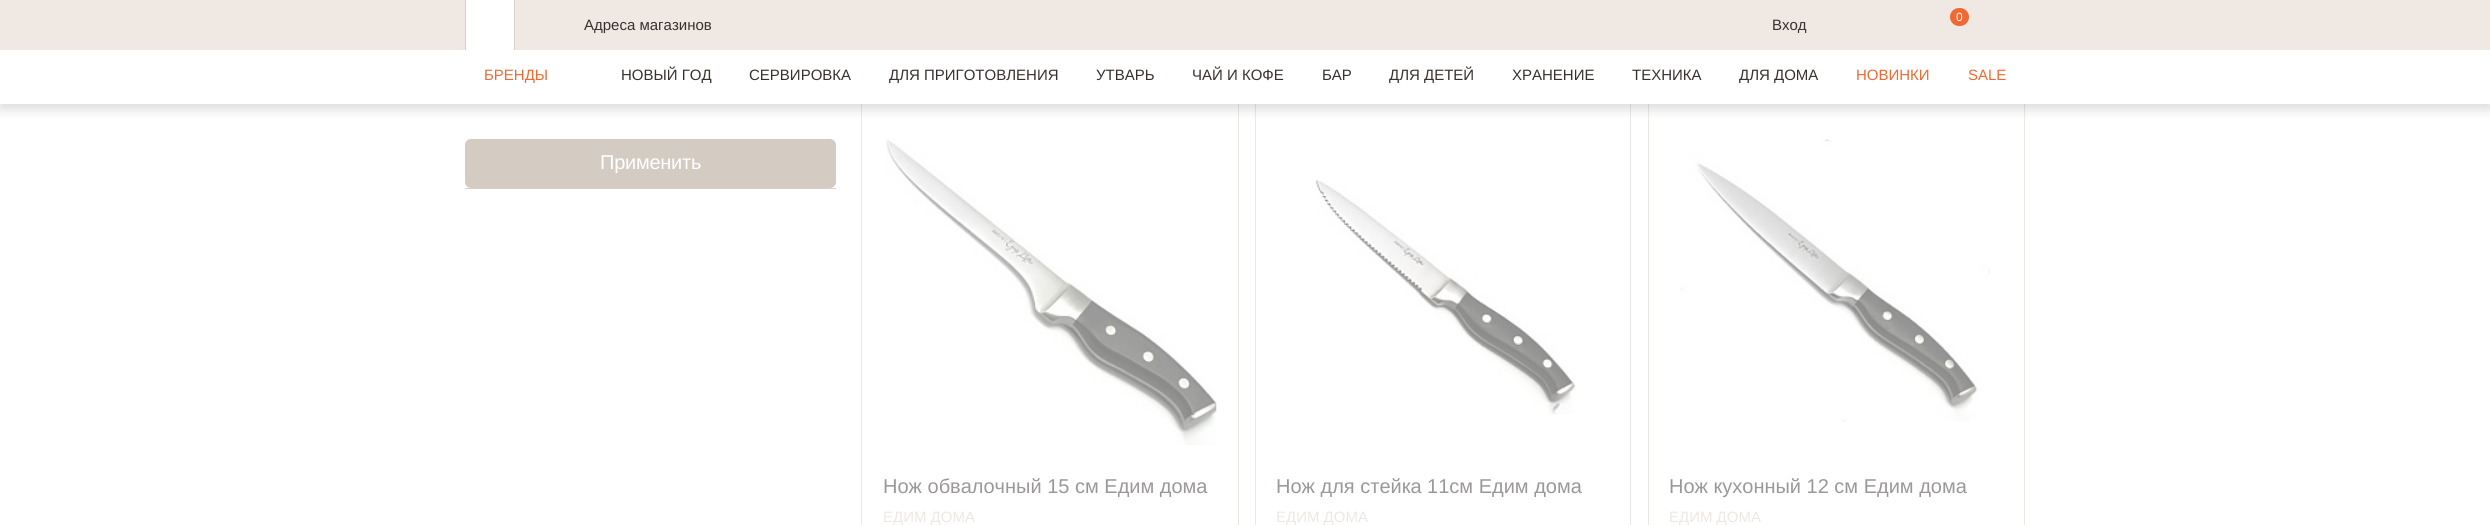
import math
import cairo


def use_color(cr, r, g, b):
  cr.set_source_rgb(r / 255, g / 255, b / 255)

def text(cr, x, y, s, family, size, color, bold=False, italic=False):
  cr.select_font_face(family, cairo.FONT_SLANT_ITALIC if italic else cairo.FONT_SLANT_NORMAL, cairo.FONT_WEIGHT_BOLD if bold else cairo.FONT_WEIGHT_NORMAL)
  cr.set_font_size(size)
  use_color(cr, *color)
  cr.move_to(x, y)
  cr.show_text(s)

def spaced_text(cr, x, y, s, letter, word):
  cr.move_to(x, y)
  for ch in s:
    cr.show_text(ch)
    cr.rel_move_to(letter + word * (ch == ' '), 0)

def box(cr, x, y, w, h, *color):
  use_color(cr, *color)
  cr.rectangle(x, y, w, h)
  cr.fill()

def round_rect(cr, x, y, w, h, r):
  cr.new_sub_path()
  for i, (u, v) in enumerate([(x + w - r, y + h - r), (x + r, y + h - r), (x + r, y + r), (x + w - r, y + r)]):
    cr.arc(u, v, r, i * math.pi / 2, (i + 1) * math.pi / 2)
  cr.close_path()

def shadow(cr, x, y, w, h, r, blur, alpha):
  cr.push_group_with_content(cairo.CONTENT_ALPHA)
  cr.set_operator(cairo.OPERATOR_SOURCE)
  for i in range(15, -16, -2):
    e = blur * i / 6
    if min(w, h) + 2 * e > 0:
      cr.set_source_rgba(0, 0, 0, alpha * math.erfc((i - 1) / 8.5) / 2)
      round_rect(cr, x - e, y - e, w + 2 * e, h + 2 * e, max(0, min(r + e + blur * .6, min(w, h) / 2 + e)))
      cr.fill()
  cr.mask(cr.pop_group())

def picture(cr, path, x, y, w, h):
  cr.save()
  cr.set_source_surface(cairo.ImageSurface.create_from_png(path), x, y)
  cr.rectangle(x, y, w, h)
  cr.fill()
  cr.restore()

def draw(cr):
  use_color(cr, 255, 255, 255)
  cr.paint()
  cr.rectangle(861.5, 93.5, 377, 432)
  use_color(cr, 237, 232, 227)
  cr.set_line_width(1)
  cr.stroke()
  cr.rectangle(1255.5, 93.5, 375, 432)
  cr.stroke()
  cr.rectangle(1648.5, 93.5, 376, 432)
  cr.stroke()
  use_color(cr, 0, 0, 0)
  shadow(cr, 0, 55, 2490, 54, 0, 6, 0.15)
  box(cr, 0, 0, 2490, 50, 239, 232, 227)
  box(cr, 466, 0, 48, 50, 255, 255, 255)
  box(cr, 514, 0, 1, 50, 218, 208, 199)
  box(cr, 465, 0, 1, 50, 218, 208, 199)
  use_color(cr, 242, 104, 50)
  round_rect(cr, 1950, 8, 19, 18, 9)
  cr.fill()
  box(cr, 0, 50, 2490, 54, 255, 255, 255)
  box(cr, 465, 188, 371, 1, 218, 208, 199)
  use_color(cr, 212, 203, 195)
  round_rect(cr, 465, 139, 371, 49, 6)
  cr.fill()
  picture(cr, "img_01.png", 886, 139, 331, 306)
  picture(cr, "img_02.png", 1315, 179, 261, 236)
  picture(cr, "img_03.png", 1680, 139, 310, 283)
  text(cr, 1956, 21, "0", "Liberation Sans", 12, (255, 255, 255))
  text(cr, 584, 30, "Адреса магазинов", "Liberation Sans", 15, (56, 49, 46))
  text(cr, 1772, 30, "Вход", "Liberation Sans", 15, (56, 49, 46))
  text(cr, 484, 80, "БРЕНДЫ", "Liberation Sans", 15, (242, 104, 50))
  text(cr, 621, 80, "НОВЫЙ ГОД", "Liberation Sans", 15, (56, 49, 46))
  text(cr, 749, 80, "СЕРВИРОВКА", "Liberation Sans", 15, (56, 49, 46))
  text(cr, 889, 80, "ДЛЯ ПРИГОТОВЛЕНИЯ", "Liberation Sans", 15, (56, 49, 46))
  text(cr, 1096, 80, "УТВАРЬ", "Liberation Sans", 15, (56, 49, 46))
  text(cr, 1192, 80, "ЧАЙ И КОФЕ", "Liberation Sans", 15, (56, 49, 46))
  text(cr, 1322, 80, "БАР", "Liberation Sans", 15, (56, 49, 46))
  text(cr, 1389, 80, "ДЛЯ ДЕТЕЙ", "Liberation Sans", 15, (56, 49, 46))
  text(cr, 1512, 80, "ХРАНЕНИЕ", "Liberation Sans", 15, (56, 49, 46))
  text(cr, 1632, 80, "ТЕХНИКА", "Liberation Sans", 15, (56, 49, 46))
  text(cr, 1739, 80, "ДЛЯ ДОМА", "Liberation Sans", 15, (56, 49, 46))
  text(cr, 1856, 80, "НОВИНКИ", "Liberation Sans", 15, (242, 104, 50))
  text(cr, 1968, 80, "SALE", "Liberation Sans", 15, (242, 104, 50))
  cr.set_font_size(20)
  use_color(cr, 255, 255, 255)
  spaced_text(cr, 600, 169, "Применить", -0.25, 0)
  text(cr, 883, 493, "Нож обвалочный 15 см Едим дома", "Liberation Sans", 20, (156, 152, 151))
  text(cr, 883, 522, "ЕДИМ ДОМА", "Liberation Sans", 15, (237, 232, 227))
  text(cr, 1276, 493, "Нож для стейка 11см Едим дома", "Liberation Sans", 20, (156, 152, 151))
  text(cr, 1276, 522, "ЕДИМ ДОМА", "Liberation Sans", 15, (237, 232, 227))
  text(cr, 1669, 493, "Нож кухонный 12 см Едим дома", "Liberation Sans", 20, (156, 152, 151))
  text(cr, 1669, 522, "ЕДИМ ДОМА", "Liberation Sans", 15, (237, 232, 227))


surface = cairo.ImageSurface(cairo.FORMAT_RGB24, 2490, 525)
cr = cairo.Context(surface)
options = cairo.FontOptions()
options.set_hint_metrics(cairo.HINT_METRICS_OFF)
options.set_hint_style(cairo.HINT_STYLE_NONE)
cr.set_font_options(options)
cr.set_miter_limit(4)
draw(cr)
surface.write_to_png("out.png")
